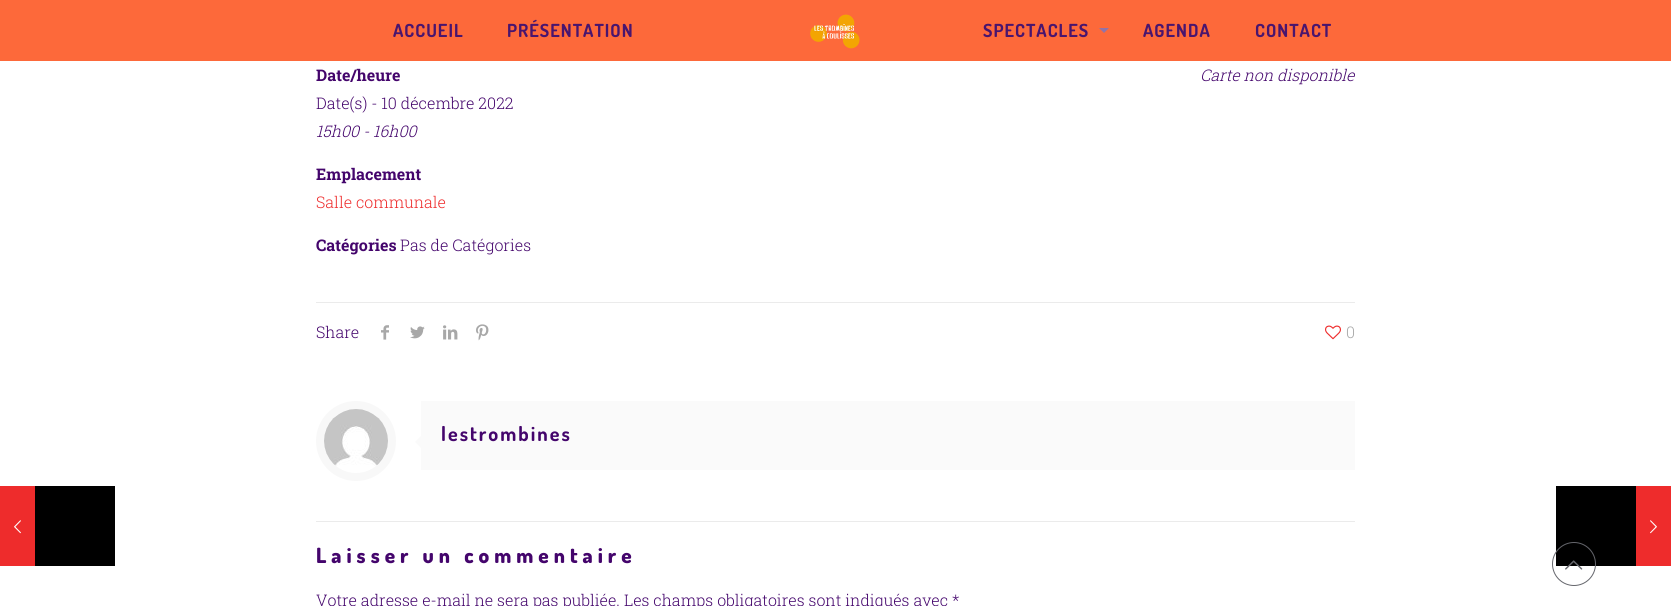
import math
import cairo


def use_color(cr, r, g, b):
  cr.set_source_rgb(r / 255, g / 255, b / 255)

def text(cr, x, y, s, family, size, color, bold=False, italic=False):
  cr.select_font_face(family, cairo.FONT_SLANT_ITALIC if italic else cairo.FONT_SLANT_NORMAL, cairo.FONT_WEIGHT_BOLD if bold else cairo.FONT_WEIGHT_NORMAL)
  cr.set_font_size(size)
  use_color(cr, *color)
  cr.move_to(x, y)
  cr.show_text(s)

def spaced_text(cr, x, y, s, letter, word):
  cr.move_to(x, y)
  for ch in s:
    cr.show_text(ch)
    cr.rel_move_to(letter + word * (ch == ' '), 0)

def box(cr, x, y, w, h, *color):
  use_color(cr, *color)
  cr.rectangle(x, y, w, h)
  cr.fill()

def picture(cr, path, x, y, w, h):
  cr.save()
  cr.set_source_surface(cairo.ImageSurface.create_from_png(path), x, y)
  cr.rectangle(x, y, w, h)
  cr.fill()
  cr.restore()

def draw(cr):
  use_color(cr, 255, 255, 255)
  cr.paint()
  box(cr, 0, 486, 35, 80, 238, 44, 44)
  picture(cr, "img_01.png", 14, 520, 7, 14)
  box(cr, 35, 486, 80, 80, 0, 0, 0)
  box(cr, 0, 0, 1671, 61, 253, 105, 58)
  picture(cr, "img_02.png", 810, 14, 50, 35)
  use_color(cr, 146, 115, 168)
  cr.new_path()
  cr.move_to(1099, 28)
  cr.line_to(1109, 28)
  cr.line_to(1104, 33)
  cr.close_path()
  cr.fill()
  box(cr, 316, 302, 1039, 1, 235, 235, 235)
  picture(cr, "img_03.png", 381, 325, 8, 15)
  picture(cr, "img_04.png", 410, 326, 15, 13)
  picture(cr, "img_05.png", 443, 325, 15, 15)
  picture(cr, "img_06.png", 476, 324, 13, 17)
  picture(cr, "img_07.png", 1325, 325, 16, 15)
  cr.arc(356, 441, 36, 0, 2 * math.pi)
  use_color(cr, 248, 248, 248)
  cr.set_line_width(8)
  cr.stroke()
  picture(cr, "img_08.png", 324, 409, 64, 57)
  box(cr, 421, 401, 934, 69, 250, 250, 250)
  cr.new_path()
  cr.move_to(421, 436)
  cr.line_to(421, 448)
  cr.line_to(415, 442)
  cr.close_path()
  cr.fill()
  box(cr, 316, 521, 1039, 1, 235, 235, 235)
  box(cr, 1556, 486, 80, 80, 0, 0, 0)
  box(cr, 1636, 486, 35, 80, 238, 44, 44)
  picture(cr, "img_09.png", 1650, 520, 7, 14)
  cr.arc(1574, 564, 21.5, 0, 2 * math.pi)
  use_color(cr, 101, 102, 108)
  cr.set_line_width(1)
  cr.stroke()
  picture(cr, "img_10.png", 1565, 560, 18, 10)
  cr.select_font_face("Dosis", cairo.FONT_SLANT_NORMAL, cairo.FONT_WEIGHT_BOLD)
  cr.set_font_size(18)
  use_color(cr, 73, 21, 110)
  spaced_text(cr, 393, 37, "ACCUEIL", 1, 0)
  spaced_text(cr, 507, 37, "PRÉSENTATION", 1, 0)
  spaced_text(cr, 983, 37, "SPECTACLES", 1, 0)
  spaced_text(cr, 1143, 37, "AGENDA", 1, 0)
  spaced_text(cr, 1255, 37, "CONTACT", 1, 0)
  text(cr, 316, 81, "Date/heure", "Roboto Slab", 16, (68, 5, 108), bold=True)
  text(cr, 316, 109, "Date(s) - 10 décembre 2022", "Roboto Slab Light", 16, (68, 5, 108))
  text(cr, 316, 137, "15h00 - 16h00", "Roboto Slab Light", 16, (68, 5, 108), italic=True)
  text(cr, 1200, 81, "Carte non disponible", "Roboto Slab Light", 16, (68, 5, 108), italic=True)
  text(cr, 316, 180, "Emplacement", "Roboto Slab", 16, (68, 5, 108), bold=True)
  text(cr, 316, 208, "Salle communale", "Roboto Slab Light", 16, (238, 44, 44))
  text(cr, 316, 251, "Catégories", "Roboto Slab", 16, (68, 5, 108), bold=True)
  text(cr, 400, 251, "Pas de Catégories", "Roboto Slab Light", 16, (68, 5, 108))
  text(cr, 316, 338, "Share", "Roboto Slab Light", 16, (68, 5, 108))
  text(cr, 1346, 338, "0", "Roboto Slab Light", 16, (168, 168, 168))
  cr.select_font_face("Dosis", cairo.FONT_SLANT_NORMAL, cairo.FONT_WEIGHT_BOLD)
  cr.set_font_size(20)
  use_color(cr, 68, 5, 108)
  spaced_text(cr, 441, 441, "lestrombines", 2, 0)
  cr.select_font_face("Dosis ExtraBold")
  cr.set_font_size(21)
  spaced_text(cr, 316, 563, "Laisser un commentaire", 5, 0)
  text(cr, 316, 606, "Votre adresse e-mail ne sera pas publiée. Les champs obligatoires sont indiqués avec *", "Roboto Slab Light", 16, (68, 5, 108))


surface = cairo.ImageSurface(cairo.FORMAT_RGB24, 1671, 606)
cr = cairo.Context(surface)
options = cairo.FontOptions()
options.set_hint_metrics(cairo.HINT_METRICS_OFF)
options.set_hint_style(cairo.HINT_STYLE_NONE)
cr.set_font_options(options)
cr.set_miter_limit(4)
draw(cr)
surface.write_to_png("out.png")
